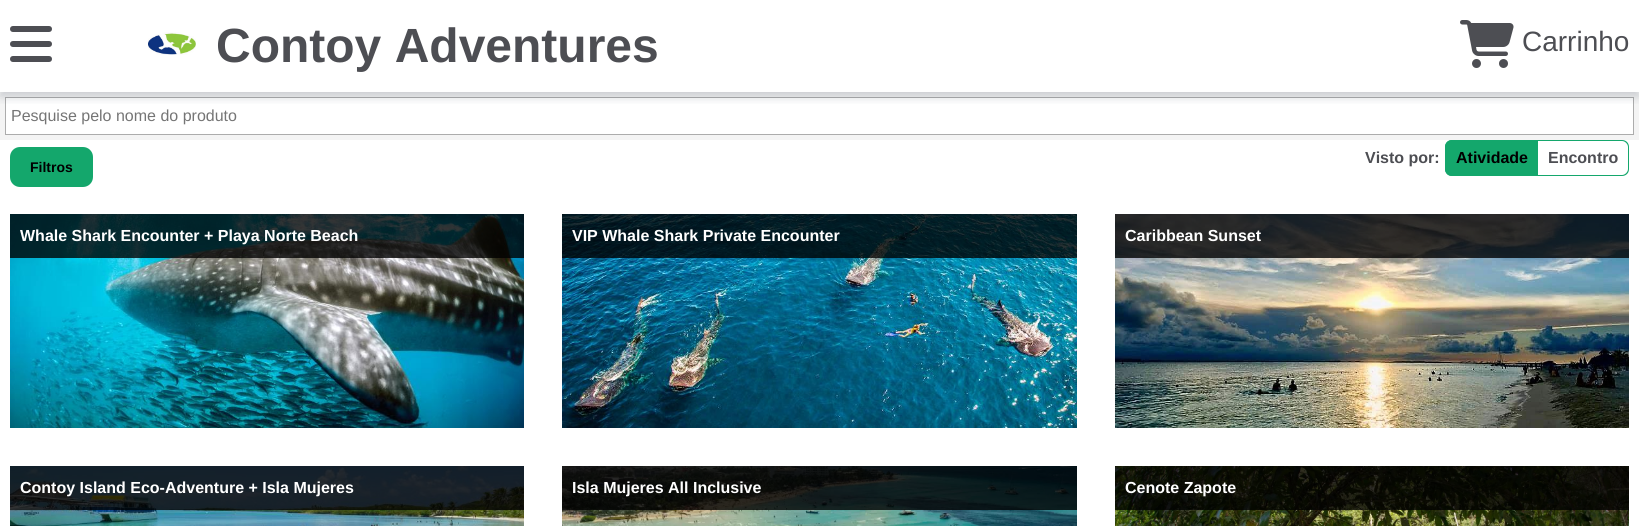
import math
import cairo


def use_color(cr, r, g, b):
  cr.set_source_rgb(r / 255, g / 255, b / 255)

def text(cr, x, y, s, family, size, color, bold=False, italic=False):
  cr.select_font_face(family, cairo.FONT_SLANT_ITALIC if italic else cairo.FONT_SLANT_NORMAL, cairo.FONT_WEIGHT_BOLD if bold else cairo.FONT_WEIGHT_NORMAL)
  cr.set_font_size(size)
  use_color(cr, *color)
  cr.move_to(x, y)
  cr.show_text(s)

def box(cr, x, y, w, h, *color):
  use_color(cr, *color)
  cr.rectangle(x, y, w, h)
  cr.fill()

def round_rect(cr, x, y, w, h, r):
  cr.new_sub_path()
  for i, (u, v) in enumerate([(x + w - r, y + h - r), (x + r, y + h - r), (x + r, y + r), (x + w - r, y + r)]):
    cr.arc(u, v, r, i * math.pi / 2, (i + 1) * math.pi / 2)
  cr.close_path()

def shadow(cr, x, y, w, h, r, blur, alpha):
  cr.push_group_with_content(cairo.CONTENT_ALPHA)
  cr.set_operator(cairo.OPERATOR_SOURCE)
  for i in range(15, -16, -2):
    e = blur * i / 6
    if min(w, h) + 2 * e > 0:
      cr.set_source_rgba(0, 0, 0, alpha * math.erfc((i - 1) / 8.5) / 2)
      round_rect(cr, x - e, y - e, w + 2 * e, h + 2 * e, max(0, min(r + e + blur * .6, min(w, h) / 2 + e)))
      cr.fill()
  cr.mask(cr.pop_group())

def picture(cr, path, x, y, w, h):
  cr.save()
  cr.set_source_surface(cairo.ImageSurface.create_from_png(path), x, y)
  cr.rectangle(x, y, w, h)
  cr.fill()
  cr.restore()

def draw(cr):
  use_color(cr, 255, 255, 255)
  cr.paint()
  box(cr, 0, 92, 1639, 48, 244, 244, 244)
  use_color(cr, 255, 255, 255)
  cr.rectangle(5.5, 97.5, 1628, 37)
  cr.fill_preserve()
  use_color(cr, 172, 172, 172)
  cr.set_line_width(1)
  cr.stroke()
  cr.save()
  cr.rectangle(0, 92, 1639, 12)
  cr.clip()
  use_color(cr, 70, 79, 97)
  shadow(cr, 0, 5, 1639, 92, 0, 5, 0.24)
  cr.restore()
  picture(cr, "img_01.png", 10, 26, 42, 36)
  picture(cr, "img_02.png", 148, 32, 48, 23)
  picture(cr, "img_03.png", 1460, 20, 54, 48)
  use_color(cr, 20, 167, 108)
  round_rect(cr, 10, 147, 83, 40, 10)
  cr.fill()
  cr.new_path()
  cr.move_to(1452, 140)
  cr.line_to(1538, 140)
  cr.line_to(1538, 176)
  cr.line_to(1452, 176)
  cr.curve_to(1448, 176, 1445, 173, 1445, 169)
  cr.line_to(1445, 147)
  cr.curve_to(1445, 143, 1448, 140, 1452, 140)
  cr.close_path()
  cr.fill()
  cr.set_fill_rule(cairo.FILL_RULE_EVEN_ODD)
  cr.new_path()
  cr.move_to(1452, 140)
  cr.line_to(1538, 140)
  cr.line_to(1538, 176)
  cr.line_to(1452, 176)
  cr.curve_to(1448, 176, 1445, 173, 1445, 169)
  cr.line_to(1445, 147)
  cr.curve_to(1445, 143, 1448, 140, 1452, 140)
  cr.close_path()
  cr.move_to(1452, 141)
  cr.line_to(1538, 141)
  cr.line_to(1538, 175)
  cr.line_to(1452, 175)
  cr.curve_to(1449, 175, 1446, 172, 1446, 169)
  cr.line_to(1446, 147)
  cr.curve_to(1446, 144, 1449, 141, 1452, 141)
  cr.close_path()
  cr.fill()
  cr.new_path()
  cr.move_to(1538, 140)
  cr.line_to(1622, 140)
  cr.curve_to(1626, 140, 1629, 143, 1629, 147)
  cr.line_to(1629, 169)
  cr.curve_to(1629, 173, 1626, 176, 1622, 176)
  cr.line_to(1538, 176)
  cr.close_path()
  cr.move_to(1538, 141)
  cr.line_to(1622, 141)
  cr.curve_to(1625, 141, 1628, 144, 1628, 147)
  cr.line_to(1628, 169)
  cr.curve_to(1628, 172, 1625, 175, 1622, 175)
  cr.line_to(1538, 175)
  cr.close_path()
  cr.fill()
  picture(cr, "img_04.png", 10, 214, 514, 214)
  cr.set_source_rgba(0, 0, 0, 0.79)
  cr.rectangle(10, 214, 514, 44)
  cr.fill()
  picture(cr, "img_05.png", 562, 214, 515, 214)
  cr.rectangle(562, 214, 515, 44)
  cr.fill()
  picture(cr, "img_06.png", 1115, 214, 514, 214)
  cr.rectangle(1115, 214, 514, 44)
  cr.fill()
  picture(cr, "img_07.png", 10, 466, 514, 60)
  cr.rectangle(10, 466, 514, 44)
  cr.fill()
  picture(cr, "img_08.png", 562, 466, 515, 60)
  cr.rectangle(562, 466, 515, 44)
  cr.fill()
  picture(cr, "img_09.png", 1115, 466, 514, 60)
  cr.rectangle(1115, 466, 514, 44)
  cr.fill()
  text(cr, 216, 62, "Contoy Adventures", "Liberation Sans", 48, (77, 78, 83), bold=True)
  text(cr, 1522, 51, "Carrinho", "Liberation Sans", 28, (77, 78, 83))
  text(cr, 11, 121, "Pesquise pelo nome do produto", "Liberation Sans", 16, (117, 117, 117))
  text(cr, 30, 172, "Filtros", "Liberation Sans", 14, (0, 0, 0), bold=True)
  text(cr, 1365, 163, "Visto por:", "Liberation Sans", 16, (77, 78, 83), bold=True)
  text(cr, 1456, 163, "Atividade", "Liberation Sans", 16, (0, 0, 0), bold=True)
  text(cr, 1548, 163, "Encontro", "Liberation Sans", 16, (77, 78, 83), bold=True)
  text(cr, 20, 241, "Whale Shark Encounter + Playa Norte Beach", "Liberation Sans", 16, (255, 255, 255), bold=True)
  text(cr, 572, 241, "VIP Whale Shark Private Encounter", "Liberation Sans", 16, (255, 255, 255), bold=True)
  text(cr, 1125, 241, "Caribbean Sunset", "Liberation Sans", 16, (255, 255, 255), bold=True)
  text(cr, 20, 493, "Contoy Island Eco-Adventure + Isla Mujeres", "Liberation Sans", 16, (255, 255, 255), bold=True)
  text(cr, 572, 493, "Isla Mujeres All Inclusive", "Liberation Sans", 16, (255, 255, 255), bold=True)
  text(cr, 1125, 493, "Cenote Zapote", "Liberation Sans", 16, (255, 255, 255), bold=True)


surface = cairo.ImageSurface(cairo.FORMAT_RGB24, 1639, 526)
cr = cairo.Context(surface)
options = cairo.FontOptions()
options.set_hint_metrics(cairo.HINT_METRICS_OFF)
options.set_hint_style(cairo.HINT_STYLE_NONE)
cr.set_font_options(options)
cr.set_miter_limit(4)
draw(cr)
surface.write_to_png("out.png")
